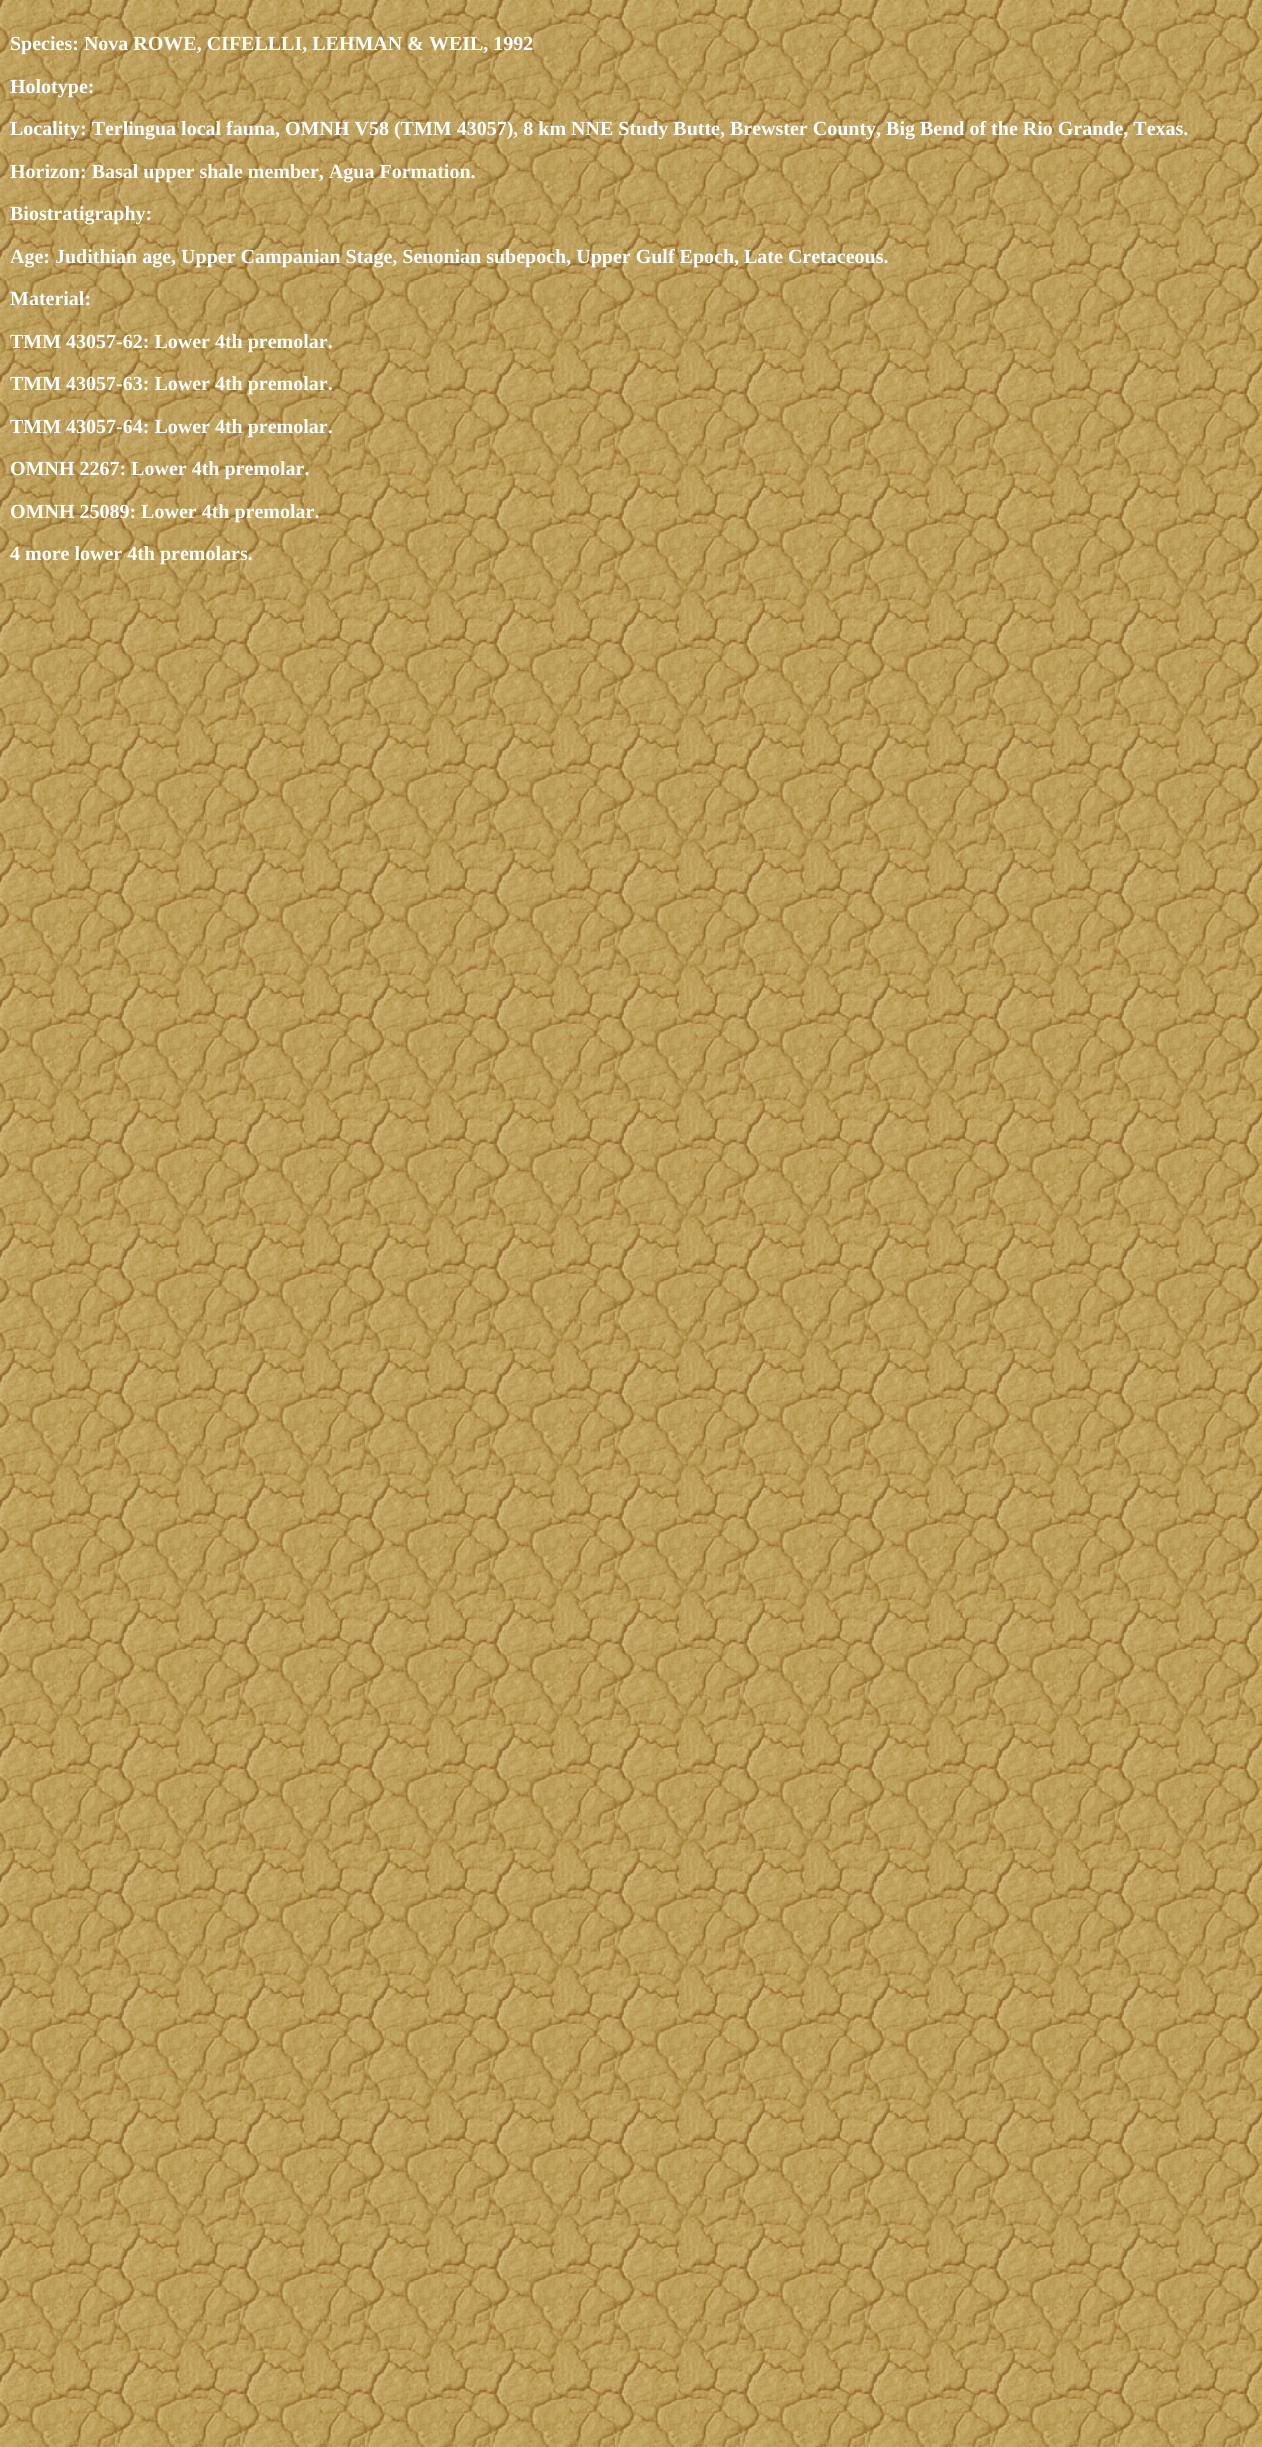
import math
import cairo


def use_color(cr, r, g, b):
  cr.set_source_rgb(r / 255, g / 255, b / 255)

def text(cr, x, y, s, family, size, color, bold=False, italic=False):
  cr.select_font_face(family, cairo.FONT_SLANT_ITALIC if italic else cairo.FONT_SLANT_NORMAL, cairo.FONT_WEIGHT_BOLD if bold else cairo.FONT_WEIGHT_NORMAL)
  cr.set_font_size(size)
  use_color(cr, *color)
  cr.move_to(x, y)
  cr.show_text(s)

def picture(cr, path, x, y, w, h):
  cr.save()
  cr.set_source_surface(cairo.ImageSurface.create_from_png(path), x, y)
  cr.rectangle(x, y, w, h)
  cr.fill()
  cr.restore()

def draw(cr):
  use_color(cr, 255, 255, 255)
  cr.paint()
  picture(cr, "img_01.png", 0, 0, 1262, 2447)
  text(cr, 10, 50, "Species: Nova ROWE, CIFELLLI, LEHMAN & WEIL, 1992", "Liberation Serif", 20, (255, 255, 255), bold=True)
  text(cr, 10, 93, "Holotype:", "Liberation Serif", 20, (255, 255, 255), bold=True)
  text(cr, 10, 135, "Locality: Terlingua local fauna, OMNH V58 (TMM 43057), 8 km NNE Study Butte, Brewster County, Big Bend of the Rio Grande, Texas.", "Liberation Serif", 20, (255, 255, 255), bold=True)
  text(cr, 10, 178, "Horizon: Basal upper shale member, Agua Formation.", "Liberation Serif", 20, (255, 255, 255), bold=True)
  text(cr, 10, 220, "Biostratigraphy:", "Liberation Serif", 20, (255, 255, 255), bold=True)
  text(cr, 10, 263, "Age: Judithian age, Upper Campanian Stage, Senonian subepoch, Upper Gulf Epoch, Late Cretaceous.", "Liberation Serif", 20, (255, 255, 255), bold=True)
  text(cr, 10, 305, "Material:", "Liberation Serif", 20, (255, 255, 255), bold=True)
  text(cr, 10, 348, "TMM 43057-62: Lower 4th premolar.", "Liberation Serif", 20, (255, 255, 255), bold=True)
  text(cr, 10, 390, "TMM 43057-63: Lower 4th premolar.", "Liberation Serif", 20, (255, 255, 255), bold=True)
  text(cr, 10, 433, "TMM 43057-64: Lower 4th premolar.", "Liberation Serif", 20, (255, 255, 255), bold=True)
  text(cr, 10, 475, "OMNH 2267: Lower 4th premolar.", "Liberation Serif", 20, (255, 255, 255), bold=True)
  text(cr, 10, 518, "OMNH 25089: Lower 4th premolar.", "Liberation Serif", 20, (255, 255, 255), bold=True)
  text(cr, 10, 560, "4 more lower 4th premolars.", "Liberation Serif", 20, (255, 255, 255), bold=True)


surface = cairo.ImageSurface(cairo.FORMAT_RGB24, 1262, 2447)
cr = cairo.Context(surface)
options = cairo.FontOptions()
options.set_hint_metrics(cairo.HINT_METRICS_OFF)
options.set_hint_style(cairo.HINT_STYLE_NONE)
cr.set_font_options(options)
cr.set_miter_limit(4)
draw(cr)
surface.write_to_png("out.png")
